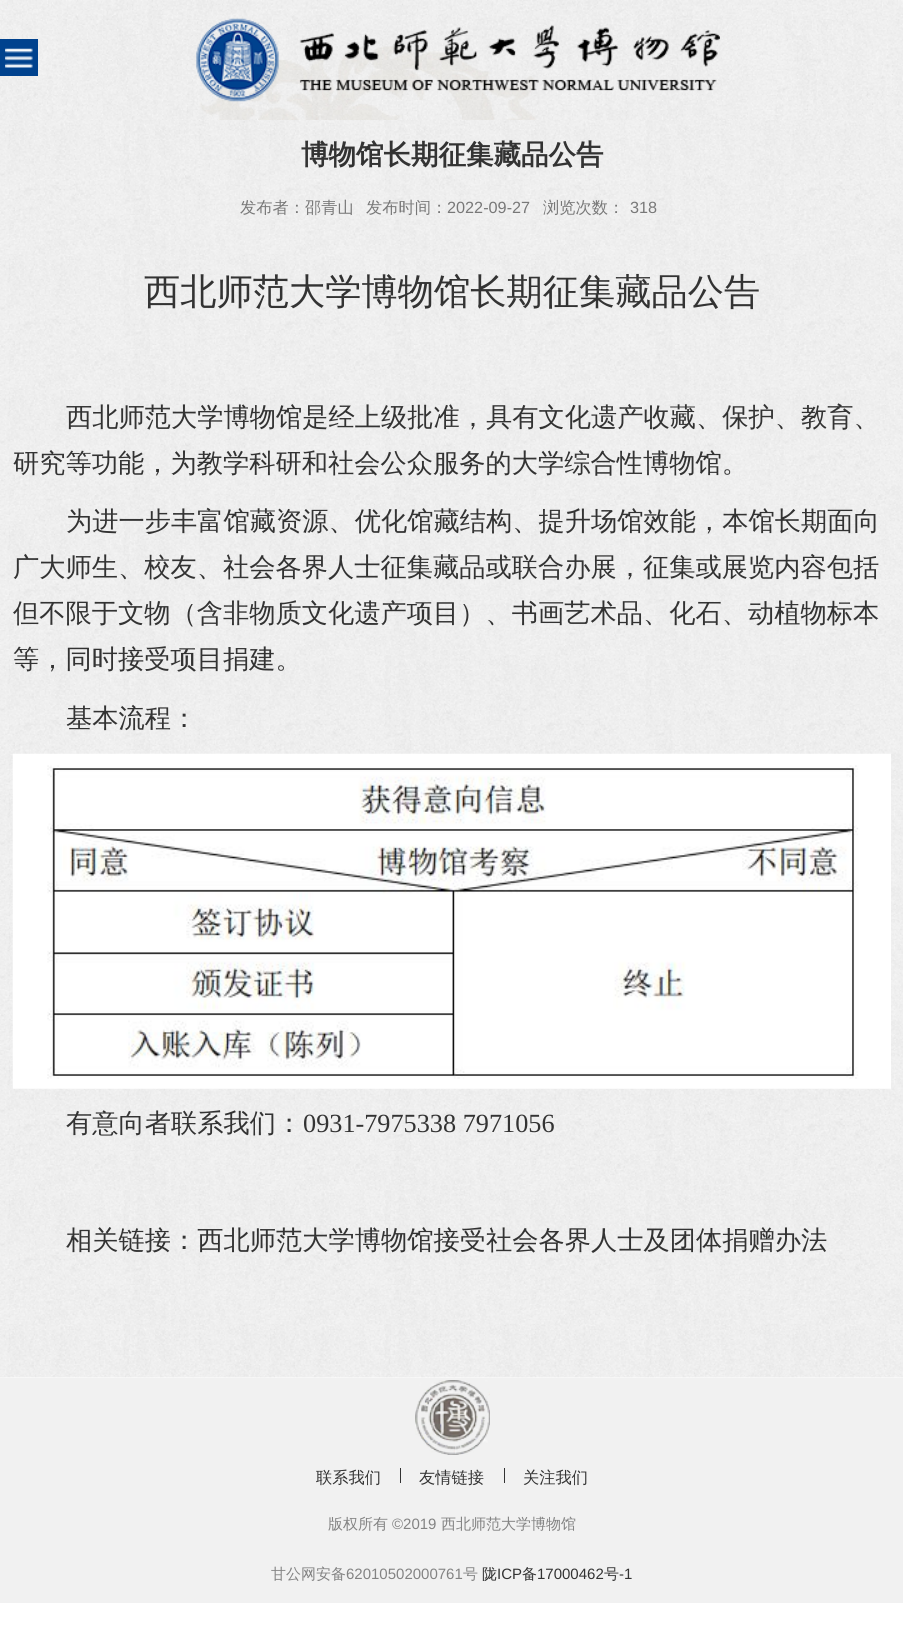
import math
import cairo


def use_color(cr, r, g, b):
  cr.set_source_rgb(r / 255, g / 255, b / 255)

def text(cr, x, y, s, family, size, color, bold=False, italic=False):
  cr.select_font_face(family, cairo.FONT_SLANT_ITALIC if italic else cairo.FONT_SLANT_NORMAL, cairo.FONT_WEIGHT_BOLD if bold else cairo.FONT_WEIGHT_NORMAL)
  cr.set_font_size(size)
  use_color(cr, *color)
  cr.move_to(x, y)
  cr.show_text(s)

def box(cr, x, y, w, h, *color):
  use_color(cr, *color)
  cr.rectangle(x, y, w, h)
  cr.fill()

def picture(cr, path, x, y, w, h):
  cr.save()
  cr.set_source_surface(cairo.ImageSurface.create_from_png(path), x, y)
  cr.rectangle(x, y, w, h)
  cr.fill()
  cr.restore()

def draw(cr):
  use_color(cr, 255, 255, 255)
  cr.paint()
  picture(cr, "img_01.png", 0, 0, 903, 120)
  box(cr, 0, 39, 38, 37, 0, 66, 142)
  picture(cr, "img_02.png", 5, 48, 28, 20)
  picture(cr, "img_03.png", 196, 18, 524, 84)
  picture(cr, "img_04.png", 0, 120, 903, 1258)
  picture(cr, "img_05.png", 12, 753, 879, 336)
  box(cr, 0, 1378, 903, 225, 241, 241, 241)
  picture(cr, "img_06.png", 415, 1380, 75, 75)
  box(cr, 400, 1468, 1, 15, 51, 51, 51)
  box(cr, 504, 1468, 1, 15, 51, 51, 51)
  text(cr, 301, 164, "博物馆长期征集藏品公告", "WenQuanYi Zen Hei", 27.5, (51, 51, 51), bold=True)
  text(cr, 240, 213, "发布者：邵青山", "WenQuanYi Zen Hei Medium", 16.25, (120, 120, 120))
  text(cr, 366, 213, "发布时间：", "WenQuanYi Zen Hei Medium", 16.25, (120, 120, 120))
  text(cr, 447, 213, "2022-09-27", "Liberation Sans", 16.25, (120, 120, 120))
  text(cr, 543, 213, "浏览次数：", "WenQuanYi Zen Hei Medium", 16.25, (120, 120, 120))
  text(cr, 630, 213, "318", "Liberation Sans", 16.25, (120, 120, 120))
  text(cr, 144, 304, "西北师范大学博物馆长期征集藏品公告", "WenQuanYi Zen Hei Medium", 36.25, (51, 51, 51))
  text(cr, 66, 426, "西北师范大学博物馆是经上级批准，具有文化遗产收藏、保护、教育、", "WenQuanYi Zen Hei Medium", 26.25, (51, 51, 51))
  text(cr, 13, 472, "研究等功能，为教学科研和社会公众服务的大学综合性博物馆。", "WenQuanYi Zen Hei Medium", 26.25, (51, 51, 51))
  text(cr, 66, 530, "为进一步丰富馆藏资源、优化馆藏结构、提升场馆效能，本馆长期面向", "WenQuanYi Zen Hei Medium", 26.25, (51, 51, 51))
  text(cr, 13, 576, "广大师生、校友、社会各界人士征集藏品或联合办展，征集或展览内容包括", "WenQuanYi Zen Hei Medium", 26.25, (51, 51, 51))
  text(cr, 13, 622, "但不限于文物（含非物质文化遗产项目）、书画艺术品、化石、动植物标本", "WenQuanYi Zen Hei Medium", 26.25, (51, 51, 51))
  text(cr, 13, 668, "等，同时接受项目捐建。", "WenQuanYi Zen Hei Medium", 26.25, (51, 51, 51))
  text(cr, 66, 727, "基本流程：", "WenQuanYi Zen Hei Medium", 26.25, (51, 51, 51))
  text(cr, 66, 1132, "有意向者联系我们：", "WenQuanYi Zen Hei Medium", 26.25, (51, 51, 51))
  text(cr, 303, 1132, "0931-7975338 7971056", "Liberation Serif", 26.25, (51, 51, 51))
  text(cr, 66, 1249, "相关链接：西北师范大学博物馆接受社会各界人士及团体捐赠办法", "WenQuanYi Zen Hei Medium", 26.25, (51, 51, 51))
  text(cr, 316, 1483, "联系我们", "WenQuanYi Zen Hei Medium", 16.25, (51, 51, 51))
  text(cr, 419, 1483, "友情链接", "WenQuanYi Zen Hei Medium", 16.25, (51, 51, 51))
  text(cr, 523, 1483, "关注我们", "WenQuanYi Zen Hei Medium", 16.25, (51, 51, 51))
  text(cr, 328, 1529, "版权所有", "WenQuanYi Zen Hei Medium", 15, (131, 131, 131))
  text(cr, 392, 1529, "©2019", "Liberation Sans", 15, (131, 131, 131))
  text(cr, 441, 1529, "西北师范大学博物馆", "WenQuanYi Zen Hei Medium", 15, (131, 131, 131))
  text(cr, 271, 1579, "甘公网安备", "WenQuanYi Zen Hei Medium", 15, (131, 131, 131))
  text(cr, 346, 1579, "62010502000761", "Liberation Sans", 15, (131, 131, 131))
  text(cr, 463, 1579, "号", "WenQuanYi Zen Hei Medium", 15, (131, 131, 131))
  text(cr, 482, 1579, "陇", "WenQuanYi Zen Hei Medium", 15, (51, 51, 51))
  text(cr, 497, 1579, "ICP", "Liberation Sans", 15, (51, 51, 51))
  text(cr, 522, 1579, "备", "WenQuanYi Zen Hei Medium", 15, (51, 51, 51))
  text(cr, 537, 1579, "17000462", "Liberation Sans", 15, (51, 51, 51))
  text(cr, 604, 1579, "号", "WenQuanYi Zen Hei Medium", 15, (51, 51, 51))
  text(cr, 619, 1579, "-1", "Liberation Sans", 15, (51, 51, 51))


surface = cairo.ImageSurface(cairo.FORMAT_RGB24, 903, 1634)
cr = cairo.Context(surface)
options = cairo.FontOptions()
options.set_hint_metrics(cairo.HINT_METRICS_OFF)
options.set_hint_style(cairo.HINT_STYLE_NONE)
cr.set_font_options(options)
cr.set_miter_limit(4)
draw(cr)
surface.write_to_png("out.png")
